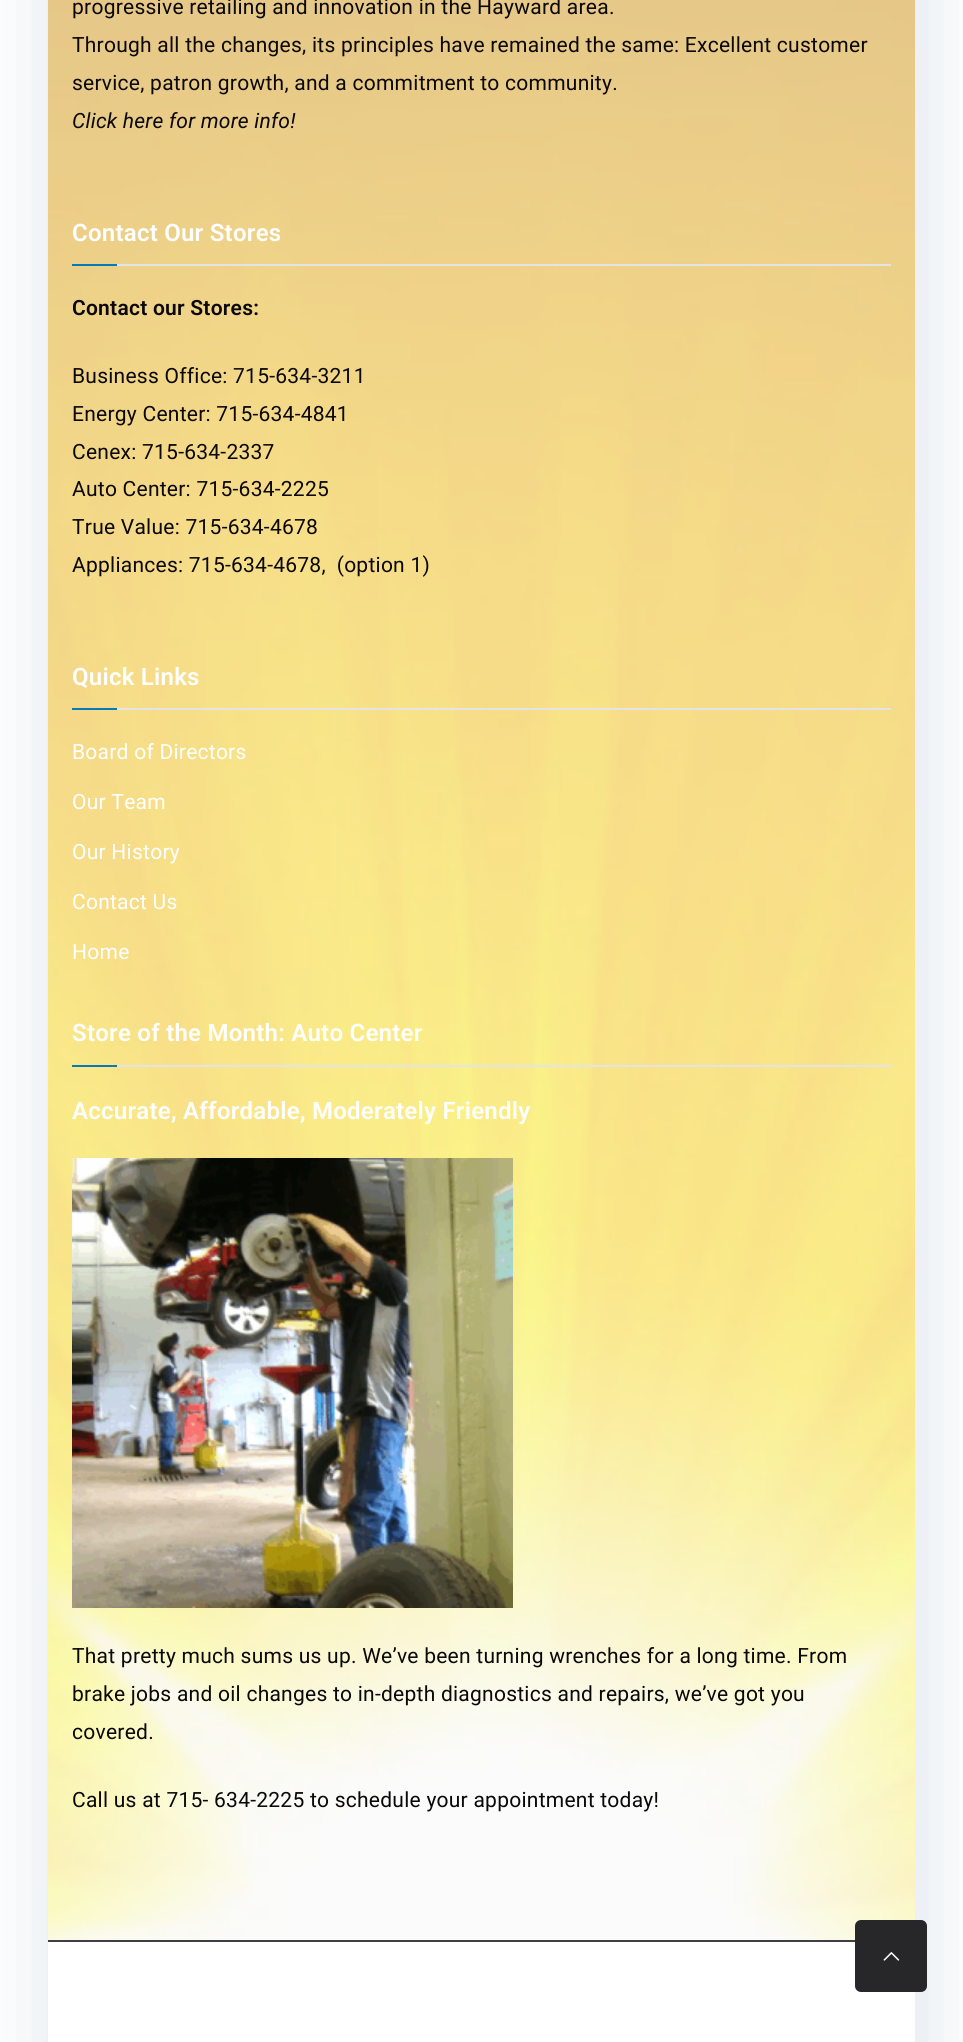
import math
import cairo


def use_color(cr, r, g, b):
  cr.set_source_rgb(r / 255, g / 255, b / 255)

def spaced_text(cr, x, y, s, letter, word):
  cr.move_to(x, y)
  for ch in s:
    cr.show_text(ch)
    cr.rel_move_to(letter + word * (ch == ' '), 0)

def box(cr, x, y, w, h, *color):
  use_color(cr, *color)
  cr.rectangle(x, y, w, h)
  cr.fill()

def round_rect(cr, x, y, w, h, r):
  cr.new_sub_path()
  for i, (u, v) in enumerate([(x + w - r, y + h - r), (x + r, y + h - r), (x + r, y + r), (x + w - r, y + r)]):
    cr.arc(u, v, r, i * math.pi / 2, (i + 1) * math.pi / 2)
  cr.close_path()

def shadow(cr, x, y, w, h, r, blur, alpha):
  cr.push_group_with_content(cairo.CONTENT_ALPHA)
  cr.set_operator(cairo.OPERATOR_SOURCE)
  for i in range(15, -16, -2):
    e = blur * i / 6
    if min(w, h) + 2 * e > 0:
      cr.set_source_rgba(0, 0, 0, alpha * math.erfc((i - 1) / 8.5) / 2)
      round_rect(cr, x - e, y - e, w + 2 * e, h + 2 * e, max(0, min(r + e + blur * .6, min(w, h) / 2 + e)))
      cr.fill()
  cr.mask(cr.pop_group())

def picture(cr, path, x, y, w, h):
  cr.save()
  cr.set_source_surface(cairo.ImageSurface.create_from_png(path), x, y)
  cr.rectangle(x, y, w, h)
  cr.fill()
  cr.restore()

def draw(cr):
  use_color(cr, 255, 255, 255)
  cr.paint()
  use_color(cr, 109, 141, 173)
  shadow(cr, 54, -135, 867, 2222, 0, 45, 0.25)
  box(cr, 48, 0, 867, 1940, 247, 247, 247)
  picture(cr, "img_01.png", 48, 0, 867, 1940)
  box(cr, 117, 264, 774, 2, 228, 228, 231)
  box(cr, 72, 264, 45, 2, 2, 122, 187)
  box(cr, 117, 708, 774, 2, 228, 228, 231)
  box(cr, 72, 708, 45, 2, 2, 122, 187)
  box(cr, 117, 1065, 774, 2, 228, 228, 231)
  box(cr, 72, 1065, 45, 2, 2, 122, 187)
  picture(cr, "img_02.png", 72, 1158, 441, 450)
  box(cr, 48, 1942, 867, 100, 255, 255, 255)
  box(cr, 48, 1940, 807, 2, 63, 63, 70)
  use_color(cr, 39, 39, 42)
  round_rect(cr, 855, 1920, 72, 72, 6)
  cr.fill()
  picture(cr, "img_03.png", 883, 1952, 17, 9)
  cr.select_font_face("Roboto")
  cr.set_font_size(21)
  use_color(cr, 10, 8, 8)
  spaced_text(cr, 72, 14, "progressive retailing and innovation in the Hayward area.", 0.25, 0)
  spaced_text(cr, 72, 52, "Through all the changes, its principles have remained the same: Excellent customer", 0.25, 0)
  spaced_text(cr, 72, 90, "service, patron growth, and a commitment to community.", 0.25, 0)
  cr.select_font_face("Roboto", cairo.FONT_SLANT_ITALIC)
  spaced_text(cr, 72, 128, "Click here for more info!", 0.25, 0)
  cr.select_font_face("Roboto SemiBold")
  cr.set_font_size(24)
  use_color(cr, 255, 255, 255)
  spaced_text(cr, 72, 241, "Contact Our Stores", 0.25, 0)
  cr.set_font_size(21)
  use_color(cr, 10, 8, 8)
  spaced_text(cr, 72, 315, "Contact our Stores:", 0.25, 0)
  cr.select_font_face("Roboto")
  spaced_text(cr, 72, 383, "Business Office: 715-634-3211", 0.25, 0)
  spaced_text(cr, 72, 421, "Energy Center: 715-634-4841", 0.25, 0)
  spaced_text(cr, 72, 459, "Cenex: 715-634-2337", 0.25, 0)
  spaced_text(cr, 72, 496, "Auto Center: 715-634-2225", 0.25, 0)
  spaced_text(cr, 72, 534, "True Value: 715-634-4678", 0.25, 0)
  spaced_text(cr, 72, 572, "Appliances: 715-634-4678,  (option 1)", 0.25, 0)
  cr.select_font_face("Roboto SemiBold")
  cr.set_font_size(24)
  use_color(cr, 255, 255, 255)
  spaced_text(cr, 72, 685, "Quick Links", 0.25, 0)
  cr.select_font_face("Roboto")
  cr.set_font_size(21)
  spaced_text(cr, 72, 759, "Board of Directors", 0.25, 0)
  spaced_text(cr, 72, 809, "Our Team", 0.25, 0)
  spaced_text(cr, 72, 859, "Our History", 0.25, 0)
  spaced_text(cr, 72, 909, "Contact Us", 0.25, 0)
  spaced_text(cr, 72, 959, "Home", 0.25, 0)
  cr.select_font_face("Roboto SemiBold")
  cr.set_font_size(24)
  spaced_text(cr, 72, 1041, "Store of the Month: Auto Center", 0.25, 0)
  spaced_text(cr, 72, 1119, "Accurate, Affordable, Moderately Friendly", 0.25, 0)
  cr.select_font_face("Roboto")
  cr.set_font_size(21)
  use_color(cr, 10, 8, 8)
  spaced_text(cr, 72, 1663, "That pretty much sums us up. We’ve been turning wrenches for a long time. From", 0.25, 0)
  spaced_text(cr, 72, 1701, "brake jobs and oil changes to in-depth diagnostics and repairs, we’ve got you", 0.25, 0)
  spaced_text(cr, 72, 1739, "covered.", 0.25, 0)
  spaced_text(cr, 72, 1807, "Call us at 715- 634-2225 to schedule your appointment today!", 0.25, 0)


surface = cairo.ImageSurface(cairo.FORMAT_RGB24, 963, 2042)
cr = cairo.Context(surface)
options = cairo.FontOptions()
options.set_hint_metrics(cairo.HINT_METRICS_OFF)
options.set_hint_style(cairo.HINT_STYLE_NONE)
cr.set_font_options(options)
cr.set_miter_limit(4)
draw(cr)
surface.write_to_png("out.png")
